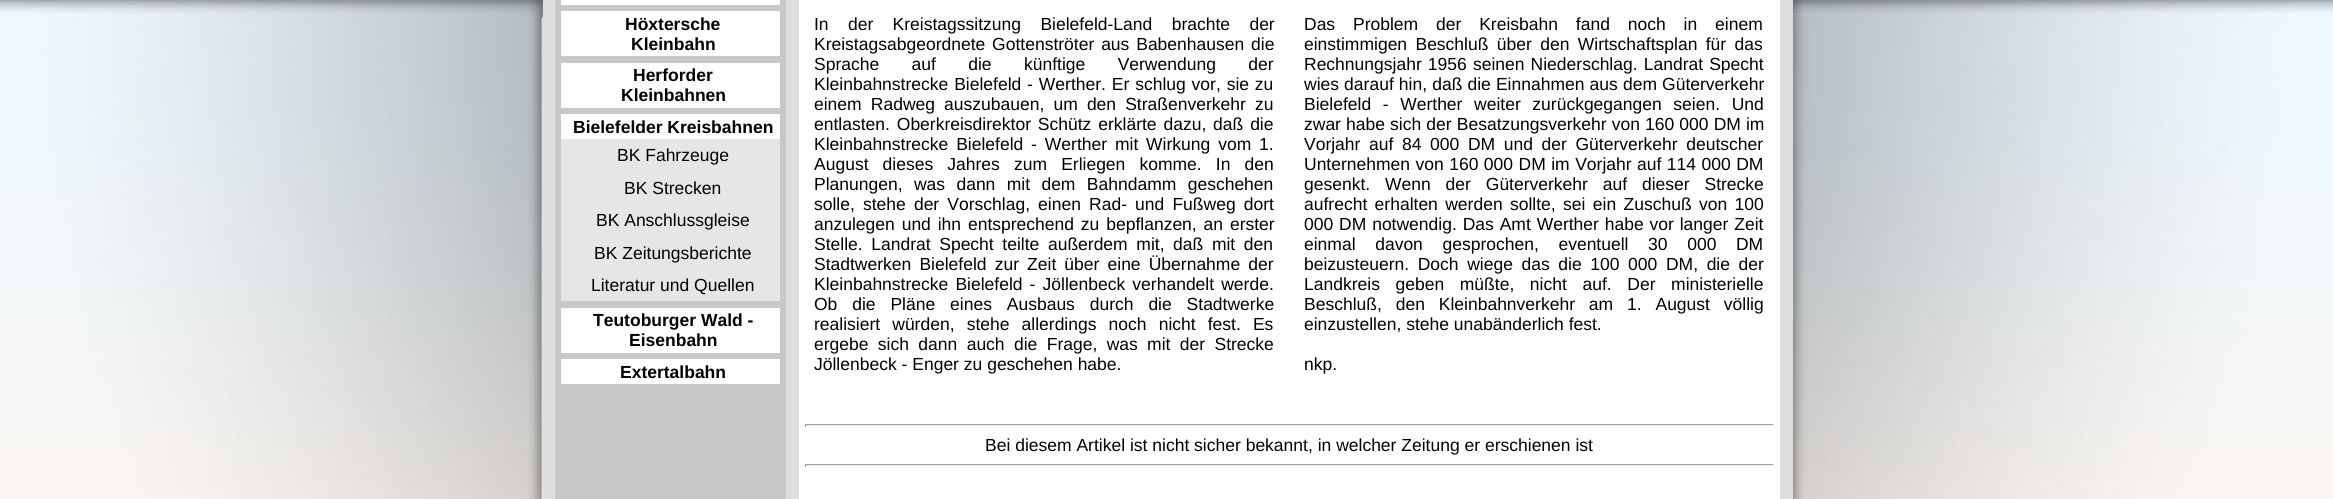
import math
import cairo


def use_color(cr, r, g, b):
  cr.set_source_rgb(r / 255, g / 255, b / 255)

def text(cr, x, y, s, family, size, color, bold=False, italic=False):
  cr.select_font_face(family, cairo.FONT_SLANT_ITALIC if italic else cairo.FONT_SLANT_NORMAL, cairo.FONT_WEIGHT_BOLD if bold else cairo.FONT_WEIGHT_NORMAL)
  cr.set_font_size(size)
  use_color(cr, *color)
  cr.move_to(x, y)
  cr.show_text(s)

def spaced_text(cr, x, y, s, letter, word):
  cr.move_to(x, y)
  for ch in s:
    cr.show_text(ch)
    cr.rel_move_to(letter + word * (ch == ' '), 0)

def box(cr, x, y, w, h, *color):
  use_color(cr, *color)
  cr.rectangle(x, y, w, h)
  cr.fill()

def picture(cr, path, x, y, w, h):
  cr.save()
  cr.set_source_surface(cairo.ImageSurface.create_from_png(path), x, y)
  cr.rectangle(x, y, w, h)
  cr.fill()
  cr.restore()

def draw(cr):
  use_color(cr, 255, 255, 255)
  cr.paint()
  picture(cr, "img_01.png", 0, 0, 2333, 499)
  box(cr, 543, 0, 1250, 499, 222, 222, 222)
  box(cr, 555, 0, 231, 499, 200, 200, 200)
  box(cr, 561, 0, 219, 5, 255, 255, 255)
  box(cr, 561, 11, 219, 45, 255, 255, 255)
  box(cr, 561, 63, 219, 45, 255, 255, 255)
  box(cr, 561, 114, 219, 25, 255, 255, 255)
  box(cr, 561, 139, 219, 162, 230, 230, 230)
  box(cr, 561, 308, 219, 45, 255, 255, 255)
  box(cr, 561, 359, 219, 25, 255, 255, 255)
  box(cr, 799, 0, 981, 499, 255, 255, 255)
  box(cr, 805, 424, 969, 1, 159, 159, 159)
  box(cr, 1773, 424, 1, 3, 238, 238, 238)
  box(cr, 805, 425, 969, 1, 238, 238, 238)
  box(cr, 805, 424, 1, 3, 159, 159, 159)
  box(cr, 805, 464, 969, 1, 159, 159, 159)
  box(cr, 1773, 464, 1, 3, 238, 238, 238)
  box(cr, 805, 465, 969, 1, 238, 238, 238)
  box(cr, 805, 464, 1, 3, 159, 159, 159)
  text(cr, 625, 30, "Höxtersche", "Liberation Sans", 17.5, (0, 0, 0), bold=True)
  text(cr, 631, 50, "Kleinbahn", "Liberation Sans", 17.5, (0, 0, 0), bold=True)
  text(cr, 633, 81, "Herforder", "Liberation Sans", 17.5, (0, 0, 0), bold=True)
  text(cr, 621, 101, "Kleinbahnen", "Liberation Sans", 17.5, (0, 0, 0), bold=True)
  text(cr, 573, 133, "Bielefelder Kreisbahnen", "Liberation Sans", 17.5, (0, 0, 0), bold=True)
  text(cr, 617, 161, "BK Fahrzeuge", "Liberation Sans", 17.5, (0, 0, 0))
  text(cr, 624, 194, "BK Strecken", "Liberation Sans", 17.5, (0, 0, 0))
  text(cr, 596, 226, "BK Anschlussgleise", "Liberation Sans", 17.5, (0, 0, 0))
  text(cr, 594, 259, "BK Zeitungsberichte", "Liberation Sans", 17.5, (0, 0, 0))
  text(cr, 591, 291, "Literatur und Quellen", "Liberation Sans", 17.5, (0, 0, 0))
  text(cr, 593, 326, "Teutoburger Wald -", "Liberation Sans", 17.5, (0, 0, 0), bold=True)
  text(cr, 629, 346, "Eisenbahn", "Liberation Sans", 17.5, (0, 0, 0), bold=True)
  text(cr, 620, 378, "Extertalbahn", "Liberation Sans", 17.5, (0, 0, 0), bold=True)
  cr.select_font_face("Liberation Sans")
  spaced_text(cr, 814, 30, "In der Kreistagssitzung Bielefeld-Land brachte der", 0, 14.5)
  spaced_text(cr, 814, 50, "Kreistagsabgeordnete Gottenströter aus Babenhausen die", 0, 2)
  spaced_text(cr, 814, 70, "Sprache auf die künftige Verwendung der", 0, 27.5)
  spaced_text(cr, 814, 90, "Kleinbahnstrecke Bielefeld - Werther. Er schlug vor, sie zu", 0, 1)
  spaced_text(cr, 814, 110, "einem Radweg auszubauen, um den Straßenverkehr zu", 0, 4.25)
  spaced_text(cr, 814, 130, "entlasten. Oberkreisdirektor Schütz erklärte dazu, daß die", 0, 2)
  spaced_text(cr, 814, 150, "Kleinbahnstrecke Bielefeld - Werther mit Wirkung vom 1.", 0, 3)
  spaced_text(cr, 814, 170, "August dieses Jahres zum Erliegen komme. In den", 0, 9.25)
  spaced_text(cr, 814, 190, "Planungen, was dann mit dem Bahndamm geschehen", 0, 6.5)
  spaced_text(cr, 814, 210, "solle, stehe der Vorschlag, einen Rad- und Fußweg dort", 0, 3.25)
  spaced_text(cr, 814, 230, "anzulegen und ihn entsprechend zu bepflanzen, an erster", 0, 2)
  spaced_text(cr, 814, 250, "Stelle. Landrat Specht teilte außerdem mit, daß mit den", 0, 3.75)
  spaced_text(cr, 814, 270, "Stadtwerken Bielefeld zur Zeit über eine Übernahme der", 0, 3.25)
  spaced_text(cr, 814, 290, "Kleinbahnstrecke Bielefeld - Jöllenbeck verhandelt werde.", 0, 2.25)
  spaced_text(cr, 814, 310, "Ob die Pläne eines Ausbaus durch die Stadtwerke", 0, 10)
  spaced_text(cr, 814, 330, "realisiert würden, stehe allerdings noch nicht fest. Es", 0, 7.25)
  spaced_text(cr, 814, 350, "ergebe sich dann auch die Frage, was mit der Strecke", 0, 4.5)
  text(cr, 814, 370, "Jöllenbeck - Enger zu geschehen habe.", "Liberation Sans", 17.5, (0, 0, 0))
  spaced_text(cr, 1304, 30, "Das Problem der Kreisbahn fand noch in einem", 0, 13)
  spaced_text(cr, 1304, 50, "einstimmigen Beschluß über den Wirtschaftsplan für das", 0, 3.5)
  spaced_text(cr, 1304, 70, "Rechnungsjahr 1956 seinen Niederschlag. Landrat Specht", 0, 1.25)
  spaced_text(cr, 1304, 90, "wies darauf hin, daß die Einnahmen aus dem Güterverkehr", 0, 0.25)
  spaced_text(cr, 1304, 110, "Bielefeld - Werther weiter zurückgegangen seien. Und", 0, 6.75)
  spaced_text(cr, 1304, 130, "zwar habe sich der Besatzungsverkehr von 160 000 DM im", 0, 0.25)
  spaced_text(cr, 1304, 150, "Vorjahr auf 84 000 DM und der Güterverkehr deutscher", 0, 3.75)
  spaced_text(cr, 1304, 170, "Unternehmen von 160 000 DM im Vorjahr auf 114 000 DM", 0, 0.6)
  spaced_text(cr, 1304, 190, "gesenkt. Wenn der Güterverkehr auf dieser Strecke", 0, 10)
  spaced_text(cr, 1304, 210, "aufrecht erhalten werden sollte, sei ein Zuschuß von 100", 0, 2.5)
  spaced_text(cr, 1304, 230, "000 DM notwendig. Das Amt Werther habe vor langer Zeit", 0, 1)
  spaced_text(cr, 1304, 250, "einmal davon gesprochen, eventuell 30 000 DM", 0, 14.75)
  spaced_text(cr, 1304, 270, "beizusteuern. Doch wiege das die 100 000 DM, die der", 0, 3.75)
  spaced_text(cr, 1304, 290, "Landkreis geben müßte, nicht auf. Der ministerielle", 0, 10.75)
  spaced_text(cr, 1304, 310, "Beschluß, den Kleinbahnverkehr am 1. August völlig", 0, 9)
  text(cr, 1304, 330, "einzustellen, stehe unabänderlich fest.", "Liberation Sans", 17.5, (0, 0, 0))
  text(cr, 1304, 370, "nkp.", "Liberation Sans", 17.5, (0, 0, 0))
  text(cr, 985, 451, "Bei diesem Artikel ist nicht sicher bekannt, in welcher Zeitung er erschienen ist", "Liberation Sans", 17.5, (0, 0, 0))


surface = cairo.ImageSurface(cairo.FORMAT_RGB24, 2333, 499)
cr = cairo.Context(surface)
options = cairo.FontOptions()
options.set_hint_metrics(cairo.HINT_METRICS_OFF)
options.set_hint_style(cairo.HINT_STYLE_NONE)
cr.set_font_options(options)
cr.set_miter_limit(4)
draw(cr)
surface.write_to_png("out.png")
